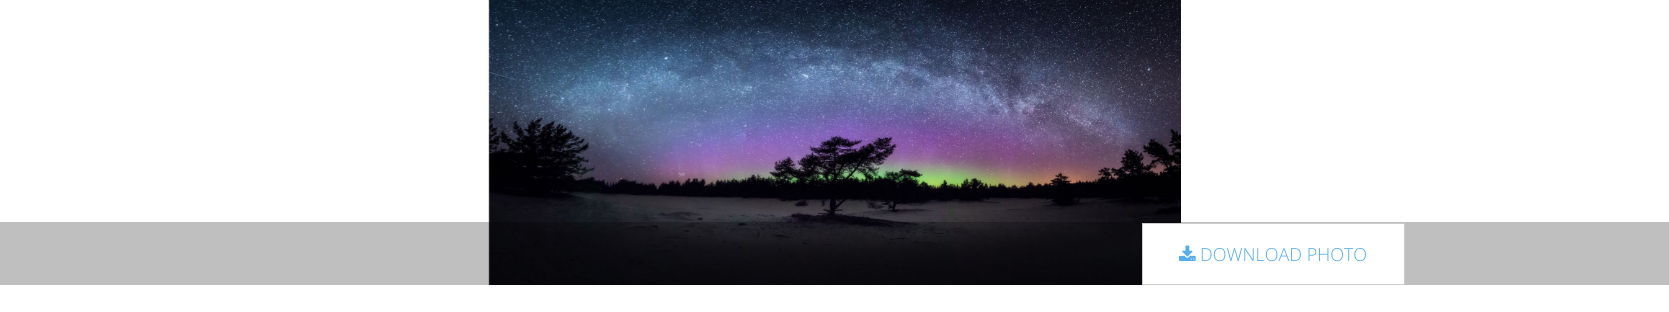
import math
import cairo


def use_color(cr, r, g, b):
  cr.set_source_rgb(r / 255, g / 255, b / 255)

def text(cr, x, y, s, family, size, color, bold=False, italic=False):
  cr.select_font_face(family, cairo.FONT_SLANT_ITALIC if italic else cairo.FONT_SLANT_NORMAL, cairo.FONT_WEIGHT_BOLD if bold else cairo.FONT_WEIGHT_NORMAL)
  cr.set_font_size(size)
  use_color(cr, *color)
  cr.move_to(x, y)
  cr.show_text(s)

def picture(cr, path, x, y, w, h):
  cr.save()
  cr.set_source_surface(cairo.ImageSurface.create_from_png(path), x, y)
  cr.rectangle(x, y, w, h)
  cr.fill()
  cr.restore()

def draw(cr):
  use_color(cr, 255, 255, 255)
  cr.paint()
  picture(cr, "img_01.png", 488, 0, 693, 285)
  cr.set_source_rgba(0, 0, 0, 0.25)
  cr.rectangle(0, 222, 1669, 63)
  cr.fill()
  use_color(cr, 255, 255, 255)
  cr.rectangle(1142.5, 223.5, 262, 61)
  cr.fill_preserve()
  use_color(cr, 204, 204, 204)
  cr.set_line_width(1)
  cr.stroke()
  picture(cr, "img_02.png", 1179, 245, 17, 16)
  text(cr, 1200, 261, "DOWNLOAD PHOTO", "Open Sans Light", 18, (85, 172, 238))


surface = cairo.ImageSurface(cairo.FORMAT_RGB24, 1669, 312)
cr = cairo.Context(surface)
options = cairo.FontOptions()
options.set_hint_metrics(cairo.HINT_METRICS_OFF)
options.set_hint_style(cairo.HINT_STYLE_NONE)
cr.set_font_options(options)
cr.set_miter_limit(4)
draw(cr)
surface.write_to_png("out.png")
